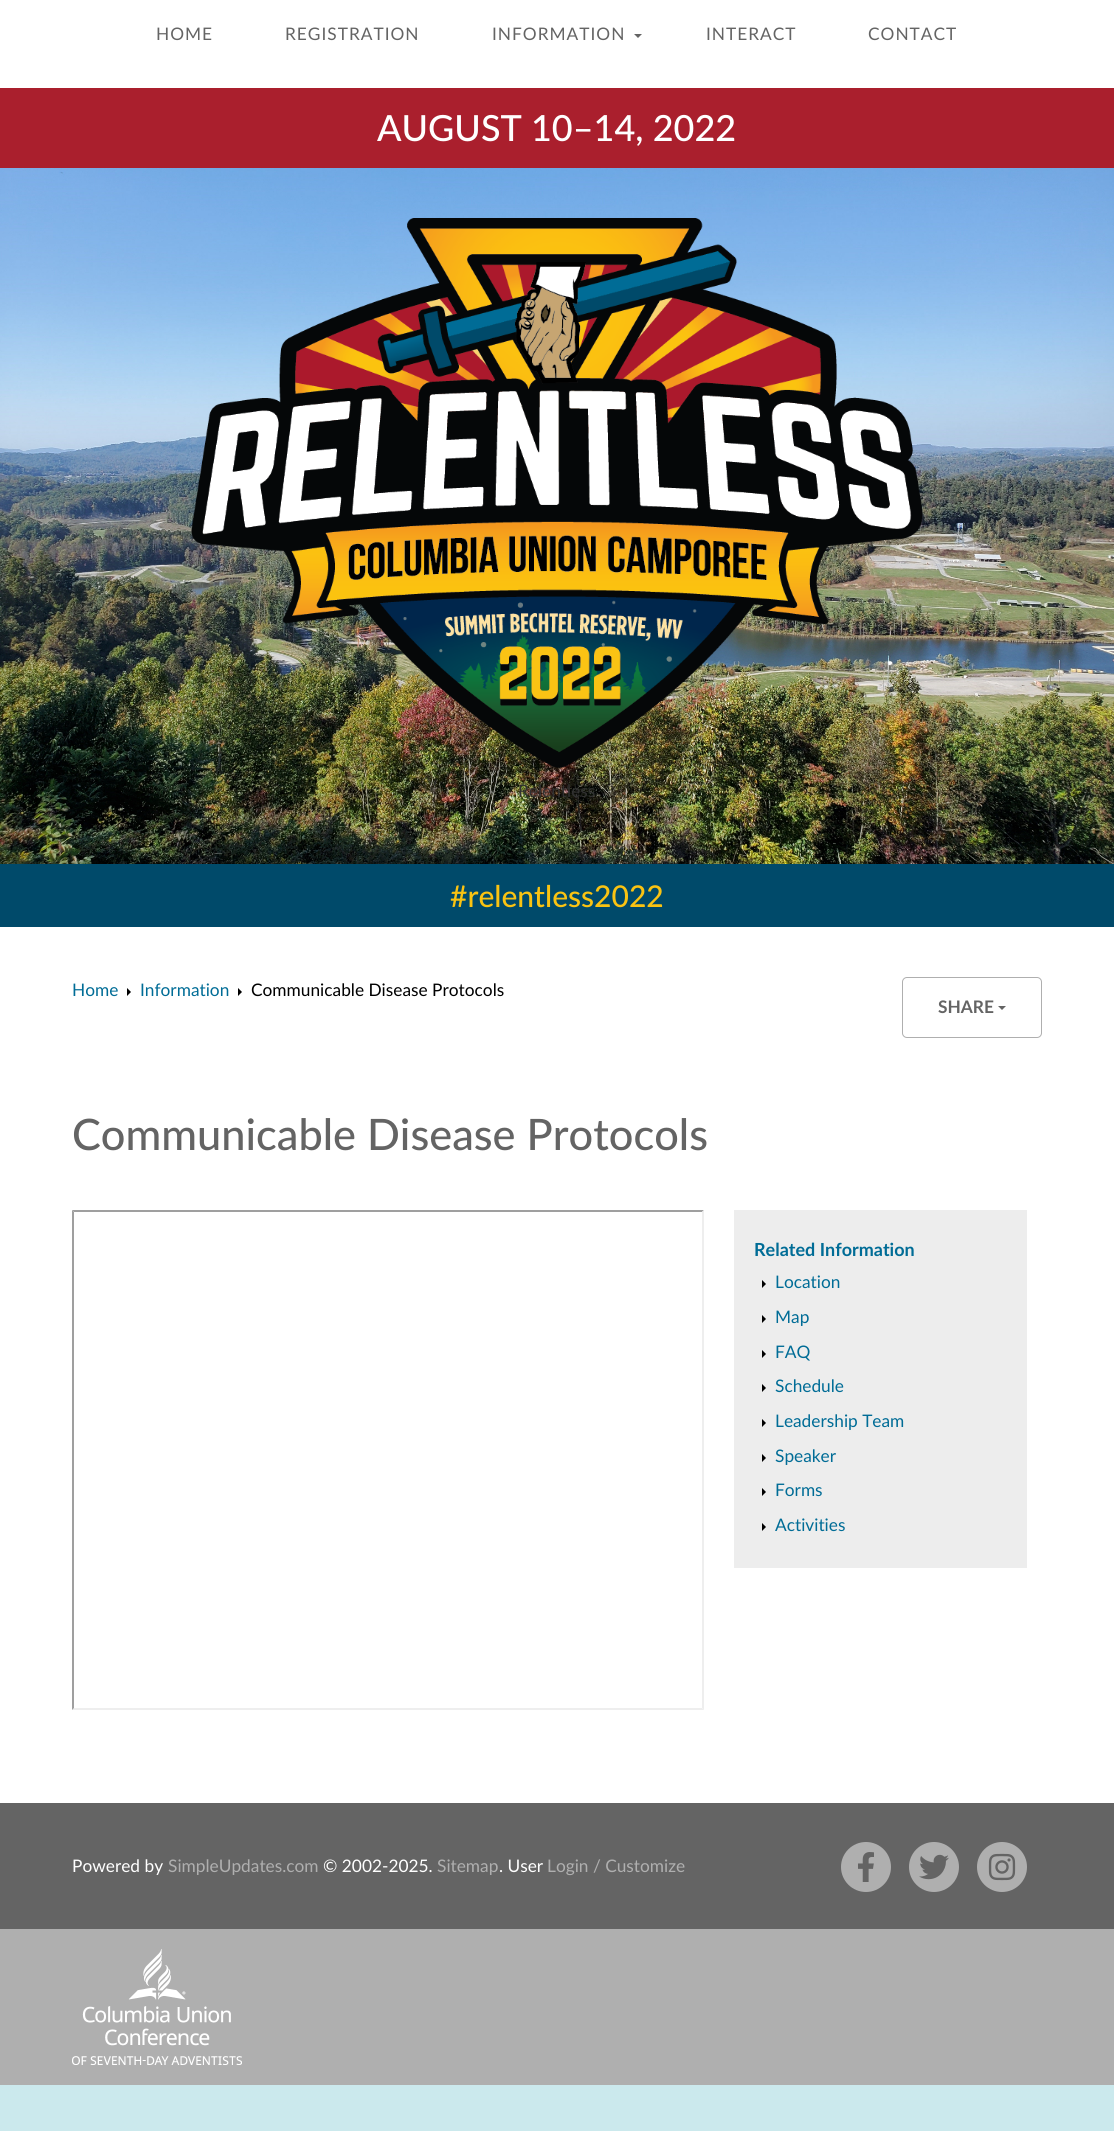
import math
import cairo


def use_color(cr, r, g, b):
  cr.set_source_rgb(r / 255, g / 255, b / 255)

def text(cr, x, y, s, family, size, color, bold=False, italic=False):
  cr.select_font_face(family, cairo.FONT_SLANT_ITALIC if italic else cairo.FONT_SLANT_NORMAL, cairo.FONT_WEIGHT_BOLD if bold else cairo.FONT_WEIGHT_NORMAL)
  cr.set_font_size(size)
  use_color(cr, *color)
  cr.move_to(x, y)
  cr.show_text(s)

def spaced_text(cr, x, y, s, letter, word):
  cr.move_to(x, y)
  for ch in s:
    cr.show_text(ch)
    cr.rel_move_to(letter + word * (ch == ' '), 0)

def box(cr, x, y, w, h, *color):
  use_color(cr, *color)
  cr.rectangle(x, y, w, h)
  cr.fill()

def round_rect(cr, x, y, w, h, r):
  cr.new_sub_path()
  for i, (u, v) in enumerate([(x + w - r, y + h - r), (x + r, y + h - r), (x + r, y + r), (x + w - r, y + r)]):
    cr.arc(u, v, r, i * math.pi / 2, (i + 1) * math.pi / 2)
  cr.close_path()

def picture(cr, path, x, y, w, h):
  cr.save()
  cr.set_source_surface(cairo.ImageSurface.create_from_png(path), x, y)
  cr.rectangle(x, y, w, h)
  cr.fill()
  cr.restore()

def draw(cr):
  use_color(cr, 203, 233, 237)
  cr.paint()
  box(cr, 0, 0, 1114, 1803, 255, 255, 255)
  use_color(cr, 100, 100, 100)
  cr.new_path()
  cr.move_to(634, 34)
  cr.line_to(642, 34)
  cr.line_to(638, 38)
  cr.close_path()
  cr.fill()
  box(cr, 0, 88, 1114, 80, 170, 31, 45)
  picture(cr, "img_01.png", 0, 168, 1114, 696)
  picture(cr, "img_02.png", 191, 218, 732, 550)
  box(cr, 0, 864, 1114, 63, 0, 74, 106)
  use_color(cr, 0, 0, 0)
  cr.new_path()
  cr.move_to(127, 996)
  cr.line_to(127, 988)
  cr.line_to(131, 992)
  cr.close_path()
  cr.fill()
  cr.new_path()
  cr.move_to(238, 996)
  cr.line_to(238, 988)
  cr.line_to(242, 992)
  cr.close_path()
  cr.fill()
  round_rect(cr, 902.5, 977.5, 139, 60, 4.5)
  use_color(cr, 175, 175, 175)
  cr.set_line_width(1)
  cr.stroke()
  use_color(cr, 100, 100, 100)
  cr.new_path()
  cr.move_to(998, 1006)
  cr.line_to(1006, 1006)
  cr.line_to(1002, 1010)
  cr.close_path()
  cr.fill()
  use_color(cr, 159, 159, 159)
  cr.new_path()
  cr.move_to(72, 1210)
  cr.line_to(704, 1210)
  cr.line_to(702, 1212)
  cr.line_to(74, 1212)
  cr.close_path()
  cr.fill()
  use_color(cr, 238, 238, 238)
  cr.new_path()
  cr.move_to(704, 1210)
  cr.line_to(704, 1710)
  cr.line_to(702, 1708)
  cr.line_to(702, 1212)
  cr.close_path()
  cr.fill()
  cr.new_path()
  cr.move_to(704, 1710)
  cr.line_to(72, 1710)
  cr.line_to(74, 1708)
  cr.line_to(702, 1708)
  cr.close_path()
  cr.fill()
  use_color(cr, 159, 159, 159)
  cr.new_path()
  cr.move_to(72, 1710)
  cr.line_to(72, 1210)
  cr.line_to(74, 1212)
  cr.line_to(74, 1708)
  cr.close_path()
  cr.fill()
  box(cr, 734, 1210, 293, 358, 237, 237, 237)
  use_color(cr, 0, 0, 0)
  cr.new_path()
  cr.move_to(762, 1288)
  cr.line_to(762, 1280)
  cr.line_to(766, 1284)
  cr.close_path()
  cr.fill()
  cr.new_path()
  cr.move_to(762, 1323)
  cr.line_to(762, 1315)
  cr.line_to(766, 1319)
  cr.close_path()
  cr.fill()
  cr.new_path()
  cr.move_to(762, 1358)
  cr.line_to(762, 1350)
  cr.line_to(766, 1354)
  cr.close_path()
  cr.fill()
  cr.new_path()
  cr.move_to(762, 1392)
  cr.line_to(762, 1384)
  cr.line_to(766, 1388)
  cr.close_path()
  cr.fill()
  cr.new_path()
  cr.move_to(762, 1427)
  cr.line_to(762, 1419)
  cr.line_to(766, 1423)
  cr.close_path()
  cr.fill()
  cr.new_path()
  cr.move_to(762, 1462)
  cr.line_to(762, 1454)
  cr.line_to(766, 1458)
  cr.close_path()
  cr.fill()
  cr.new_path()
  cr.move_to(762, 1496)
  cr.line_to(762, 1488)
  cr.line_to(766, 1492)
  cr.close_path()
  cr.fill()
  cr.new_path()
  cr.move_to(762, 1531)
  cr.line_to(762, 1523)
  cr.line_to(766, 1527)
  cr.close_path()
  cr.fill()
  box(cr, 0, 1803, 1114, 126, 100, 100, 100)
  use_color(cr, 175, 175, 175)
  cr.arc(866, 1867, 25, 0, 2 * math.pi)
  cr.fill()
  picture(cr, "img_03.png", 858, 1852, 16, 30)
  cr.arc(934, 1867, 25, 0, 2 * math.pi)
  cr.fill()
  picture(cr, "img_04.png", 919, 1854, 30, 26)
  cr.arc(1002, 1867, 25, 0, 2 * math.pi)
  cr.fill()
  picture(cr, "img_05.png", 988, 1853, 28, 28)
  box(cr, 0, 1929, 1114, 156, 175, 175, 175)
  picture(cr, "img_06.png", 72, 1949, 170, 116)
  cr.select_font_face("Lato")
  cr.set_font_size(17.3)
  use_color(cr, 100, 100, 100)
  spaced_text(cr, 156, 40, "HOME", 1, 0)
  spaced_text(cr, 285, 40, "REGISTRATION", 1, 0)
  spaced_text(cr, 492, 40, "INFORMATION", 1, 0)
  spaced_text(cr, 706, 40, "INTERACT", 1, 0)
  spaced_text(cr, 868, 40, "CONTACT", 1, 0)
  text(cr, 377, 141, "AUGUST 10–14, 2022", "Lato Medium", 36, (255, 255, 255))
  text(cr, 518, 797, "Relentless", "Lato", 17.3, (49, 49, 49))
  text(cr, 450, 907, "#relentless2022", "Lato Medium", 30, (250, 195, 18))
  text(cr, 72, 996, "Home", "Lato", 17.3, (0, 108, 150))
  text(cr, 140, 996, "Information", "Lato", 17.3, (0, 108, 150))
  text(cr, 251, 996, "Communicable Disease Protocols", "Lato", 17.3, (0, 0, 0))
  text(cr, 938, 1013, "SHARE", "Lato", 17.3, (100, 100, 100), bold=True)
  text(cr, 72, 1150, "Communicable Disease Protocols", "Lato Medium", 43.3, (100, 100, 100))
  text(cr, 754, 1256, "Related Information", "Lato", 18, (0, 108, 150), bold=True)
  text(cr, 775, 1288, "Location", "Lato", 17.3, (0, 108, 150))
  text(cr, 775, 1323, "Map", "Lato", 17.3, (0, 108, 150))
  text(cr, 775, 1358, "FAQ", "Lato", 17.3, (0, 108, 150))
  text(cr, 775, 1392, "Schedule", "Lato", 17.3, (0, 108, 150))
  text(cr, 775, 1427, "Leadership Team", "Lato", 17.3, (0, 108, 150))
  text(cr, 775, 1462, "Speaker", "Lato", 17.3, (0, 108, 150))
  text(cr, 775, 1496, "Forms", "Lato", 17.3, (0, 108, 150))
  text(cr, 775, 1531, "Activities", "Lato", 17.3, (0, 108, 150))
  text(cr, 72, 1872, "Powered by", "Lato", 17.3, (255, 255, 255))
  text(cr, 168, 1872, "SimpleUpdates.com", "Lato", 17.3, (175, 175, 175))
  text(cr, 323, 1872, "© 2002-2025.", "Lato", 17.3, (255, 255, 255))
  text(cr, 437, 1872, "Sitemap", "Lato", 17.3, (175, 175, 175))
  text(cr, 499, 1872, ". User", "Lato", 17.3, (255, 255, 255))
  text(cr, 547, 1872, "Login / Customize", "Lato", 17.3, (175, 175, 175))


surface = cairo.ImageSurface(cairo.FORMAT_RGB24, 1114, 2131)
cr = cairo.Context(surface)
options = cairo.FontOptions()
options.set_hint_metrics(cairo.HINT_METRICS_OFF)
options.set_hint_style(cairo.HINT_STYLE_NONE)
cr.set_font_options(options)
cr.set_miter_limit(4)
draw(cr)
surface.write_to_png("out.png")
